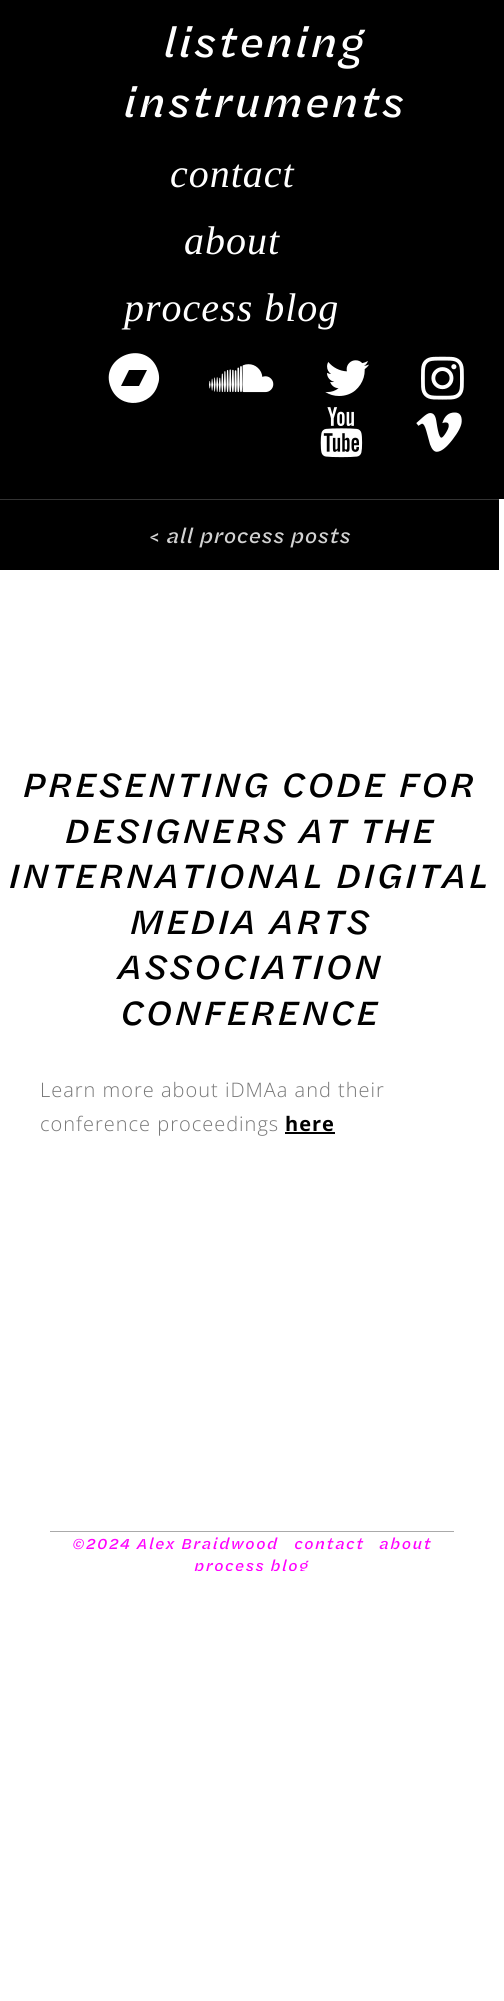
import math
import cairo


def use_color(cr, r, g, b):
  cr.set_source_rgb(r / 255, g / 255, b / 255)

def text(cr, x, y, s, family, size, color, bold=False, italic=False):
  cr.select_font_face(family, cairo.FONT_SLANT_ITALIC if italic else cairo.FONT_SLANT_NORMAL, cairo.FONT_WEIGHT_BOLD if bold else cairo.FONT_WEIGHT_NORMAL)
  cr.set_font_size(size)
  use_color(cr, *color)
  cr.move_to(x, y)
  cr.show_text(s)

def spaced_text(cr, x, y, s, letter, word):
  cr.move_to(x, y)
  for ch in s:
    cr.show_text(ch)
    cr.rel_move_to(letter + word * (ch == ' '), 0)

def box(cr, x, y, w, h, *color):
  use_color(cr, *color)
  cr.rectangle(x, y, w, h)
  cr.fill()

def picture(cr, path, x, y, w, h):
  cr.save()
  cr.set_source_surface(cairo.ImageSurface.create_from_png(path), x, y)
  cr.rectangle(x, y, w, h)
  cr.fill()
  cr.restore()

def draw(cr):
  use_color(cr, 255, 255, 255)
  cr.paint()
  box(cr, 0, 0, 504, 499, 0, 0, 0)
  use_color(cr, 255, 255, 255)
  cr.new_path()
  cr.move_to(139, 386)
  cr.line_to(147, 370)
  cr.line_to(129, 370)
  cr.line_to(121, 386)
  cr.close_path()
  cr.move_to(157, 368)
  cr.curve_to(159, 373, 160, 379, 158, 384)
  cr.curve_to(152, 407, 120, 410, 111, 388)
  cr.curve_to(98, 358, 144, 338, 157, 368)
  cr.close_path()
  cr.fill()
  picture(cr, "img_01.png", 209, 364, 65, 29)
  picture(cr, "img_02.png", 325, 360, 44, 36)
  picture(cr, "img_03.png", 421, 356, 43, 44)
  picture(cr, "img_04.png", 320, 407, 43, 51)
  picture(cr, "img_05.png", 416, 412, 46, 40)
  box(cr, 0, 500, 499, 70, 0, 0, 0)
  box(cr, 0, 499, 499, 1, 51, 51, 51)
  box(cr, 285, 1132, 50, 2, 0, 0, 0)
  box(cr, 50, 1531, 404, 1, 170, 170, 170)
  cr.select_font_face("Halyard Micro", cairo.FONT_SLANT_ITALIC)
  cr.set_font_size(40)
  use_color(cr, 255, 255, 255)
  spaced_text(cr, 163, 57, "listening", 1, 0)
  spaced_text(cr, 123, 117, "instruments", 1, 0)
  cr.select_font_face("Liberation Serif", cairo.FONT_SLANT_ITALIC)
  spaced_text(cr, 170, 187, "contact", 1, 0)
  spaced_text(cr, 184, 254, "about", 1, 0)
  spaced_text(cr, 124, 321, "process blog", 1, 0)
  text(cr, 149, 543, "< all process posts", "Halyard Micro", 20, (210, 210, 210), italic=True)
  cr.set_font_size(35)
  use_color(cr, 0, 0, 0)
  spaced_text(cr, 22, 797, "PRESENTING CODE FOR", 1, 0)
  spaced_text(cr, 64, 843, "DESIGNERS AT THE", 1, 0)
  spaced_text(cr, 8, 888, "INTERNATIONAL DIGITAL", 1, 0)
  spaced_text(cr, 129, 934, "MEDIA ARTS", 1, 0)
  spaced_text(cr, 117, 979, "ASSOCIATION", 1, 0)
  spaced_text(cr, 120, 1025, "CONFERENCE", 1, 0)
  cr.select_font_face("Open Sans Light")
  cr.set_font_size(20)
  use_color(cr, 119, 119, 119)
  spaced_text(cr, 40, 1097, "Learn more about iDMAa and their", 1, 0)
  spaced_text(cr, 40, 1131, "conference proceedings", 1, 0)
  cr.select_font_face("Open Sans", cairo.FONT_SLANT_NORMAL, cairo.FONT_WEIGHT_BOLD)
  use_color(cr, 0, 0, 0)
  spaced_text(cr, 285, 1131, "here", 1, 0)
  cr.select_font_face("Halyard Micro", cairo.FONT_SLANT_ITALIC)
  cr.set_font_size(15)
  use_color(cr, 255, 0, 255)
  spaced_text(cr, 72, 1549, "©2024 Alex Braidwood", 1, 0)
  spaced_text(cr, 294, 1549, "contact", 1, 0)
  spaced_text(cr, 379, 1549, "about", 1, 0)
  cr.save()
  cr.rectangle(50, 1532, 404, 39)
  cr.clip()
  spaced_text(cr, 194, 1571, "process blog", 1, 0)
  cr.restore()


surface = cairo.ImageSurface(cairo.FORMAT_RGB24, 504, 2001)
cr = cairo.Context(surface)
options = cairo.FontOptions()
options.set_hint_metrics(cairo.HINT_METRICS_OFF)
options.set_hint_style(cairo.HINT_STYLE_NONE)
cr.set_font_options(options)
cr.set_miter_limit(4)
draw(cr)
surface.write_to_png("out.png")
